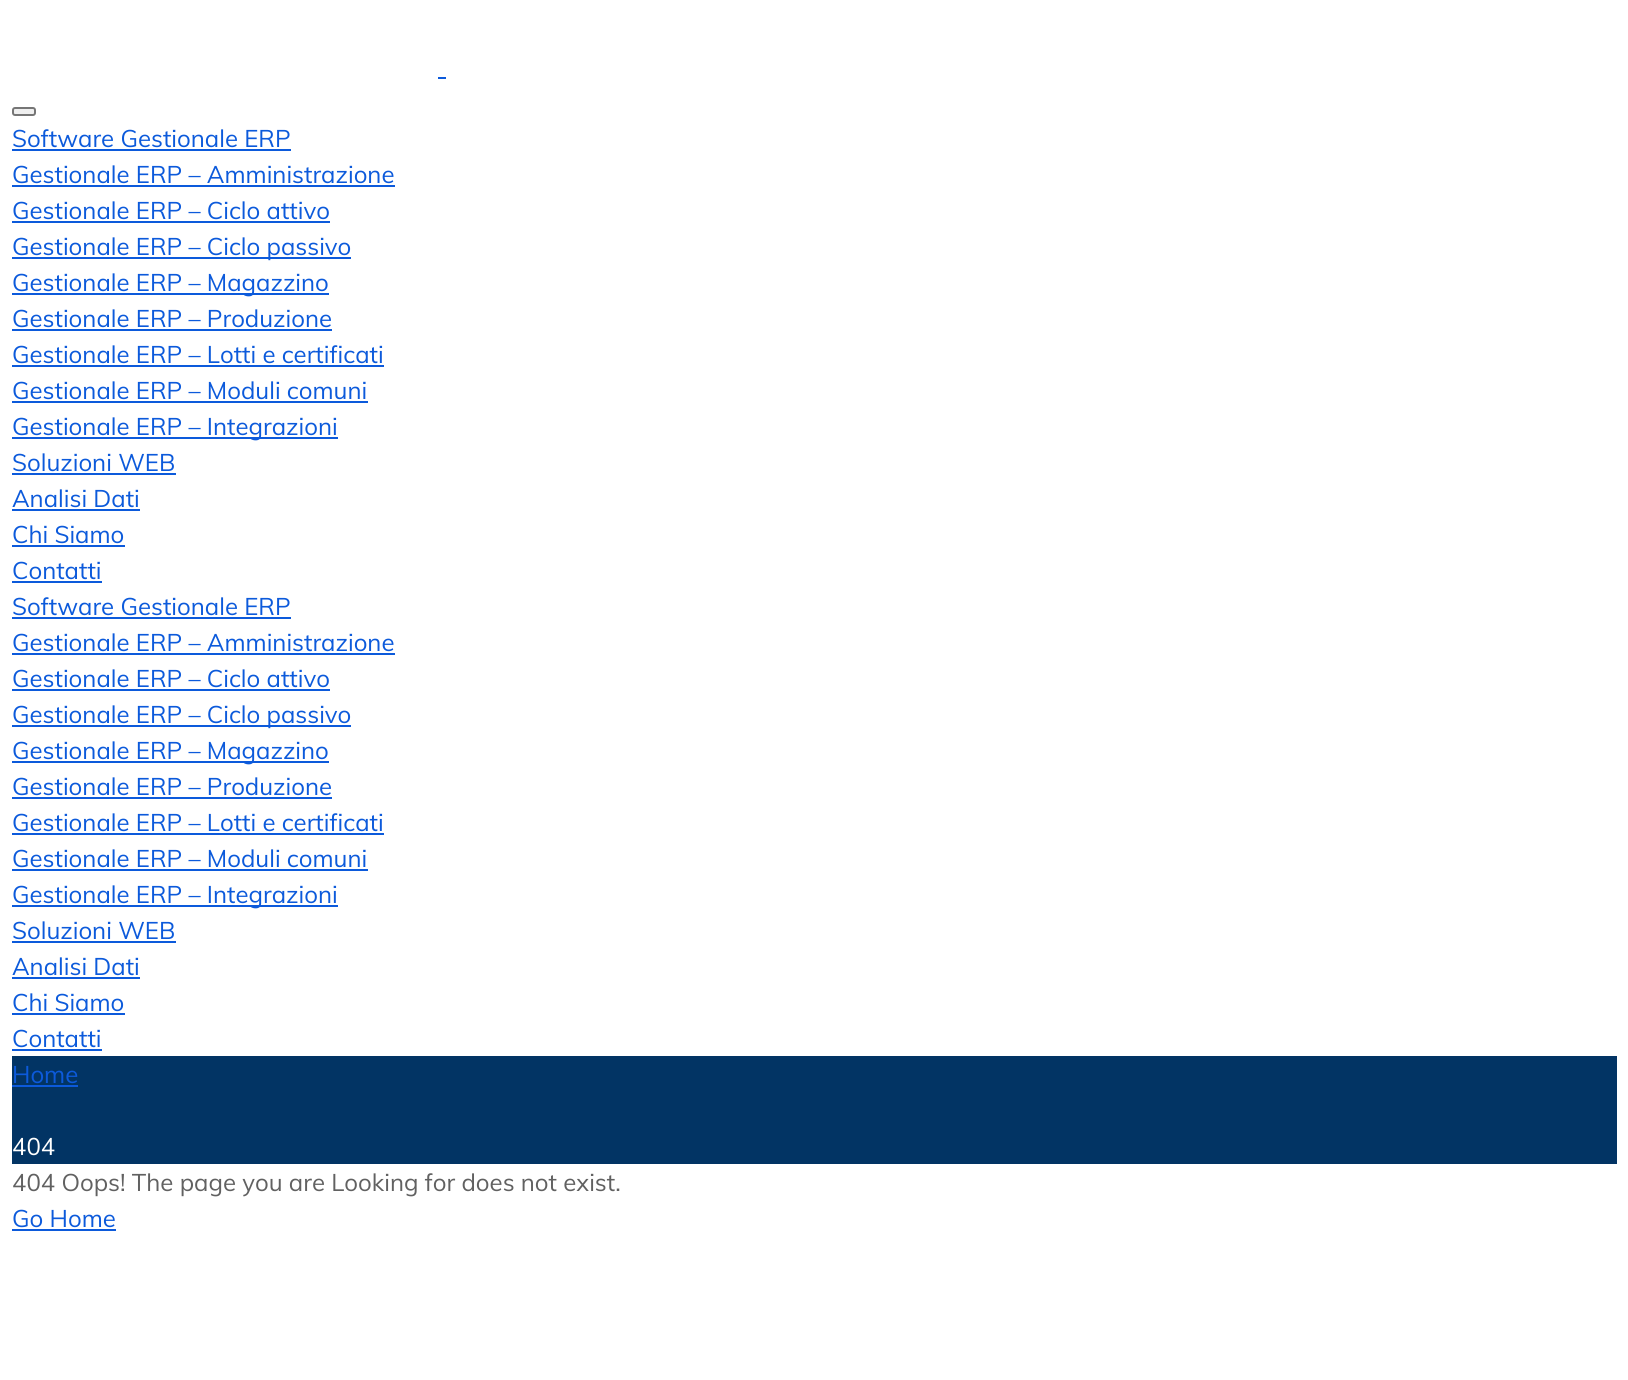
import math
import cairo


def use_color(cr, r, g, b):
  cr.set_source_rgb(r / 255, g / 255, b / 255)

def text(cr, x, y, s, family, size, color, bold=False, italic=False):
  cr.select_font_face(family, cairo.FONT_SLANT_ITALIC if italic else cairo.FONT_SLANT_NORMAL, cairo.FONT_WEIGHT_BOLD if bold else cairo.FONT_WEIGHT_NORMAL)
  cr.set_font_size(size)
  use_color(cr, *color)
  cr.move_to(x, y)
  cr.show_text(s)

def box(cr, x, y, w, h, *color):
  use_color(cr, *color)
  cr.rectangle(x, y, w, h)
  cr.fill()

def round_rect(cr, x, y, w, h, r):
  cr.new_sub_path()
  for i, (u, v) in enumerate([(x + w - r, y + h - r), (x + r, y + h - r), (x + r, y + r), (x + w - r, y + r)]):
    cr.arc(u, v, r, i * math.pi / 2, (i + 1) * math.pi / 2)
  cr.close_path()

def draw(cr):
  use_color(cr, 255, 255, 255)
  cr.paint()
  box(cr, 438, 77, 8, 2, 12, 90, 219)
  use_color(cr, 239, 239, 239)
  round_rect(cr, 13, 108, 22, 7, 2)
  cr.fill_preserve()
  use_color(cr, 118, 118, 118)
  cr.stroke()
  box(cr, 12, 149, 279, 2, 12, 90, 219)
  box(cr, 12, 185, 383, 2, 12, 90, 219)
  box(cr, 12, 221, 318, 2, 12, 90, 219)
  box(cr, 12, 257, 339, 2, 12, 90, 219)
  box(cr, 12, 293, 317, 2, 12, 90, 219)
  box(cr, 12, 329, 320, 2, 12, 90, 219)
  box(cr, 12, 365, 372, 2, 12, 90, 219)
  box(cr, 12, 401, 356, 2, 12, 90, 219)
  box(cr, 12, 437, 326, 2, 12, 90, 219)
  box(cr, 12, 473, 164, 2, 12, 90, 219)
  box(cr, 12, 509, 128, 2, 12, 90, 219)
  box(cr, 12, 545, 113, 2, 12, 90, 219)
  box(cr, 12, 581, 90, 2, 12, 90, 219)
  box(cr, 12, 617, 279, 2, 12, 90, 219)
  box(cr, 12, 653, 383, 2, 12, 90, 219)
  box(cr, 12, 689, 318, 2, 12, 90, 219)
  box(cr, 12, 725, 339, 2, 12, 90, 219)
  box(cr, 12, 761, 317, 2, 12, 90, 219)
  box(cr, 12, 797, 320, 2, 12, 90, 219)
  box(cr, 12, 833, 372, 2, 12, 90, 219)
  box(cr, 12, 869, 356, 2, 12, 90, 219)
  box(cr, 12, 905, 326, 2, 12, 90, 219)
  box(cr, 12, 941, 164, 2, 12, 90, 219)
  box(cr, 12, 977, 128, 2, 12, 90, 219)
  box(cr, 12, 1013, 113, 2, 12, 90, 219)
  box(cr, 12, 1049, 90, 2, 12, 90, 219)
  box(cr, 12, 1056, 1605, 108, 2, 52, 100)
  box(cr, 12, 1085, 66, 2, 12, 90, 219)
  box(cr, 12, 1229, 104, 2, 12, 90, 219)
  text(cr, 12, 147, "Software Gestionale ERP", "Muli", 24, (12, 90, 219))
  text(cr, 12, 183, "Gestionale ERP – Amministrazione", "Muli", 24, (12, 90, 219))
  text(cr, 12, 219, "Gestionale ERP – Ciclo attivo", "Muli", 24, (12, 90, 219))
  text(cr, 12, 255, "Gestionale ERP – Ciclo passivo", "Muli", 24, (12, 90, 219))
  text(cr, 12, 291, "Gestionale ERP – Magazzino", "Muli", 24, (12, 90, 219))
  text(cr, 12, 327, "Gestionale ERP – Produzione", "Muli", 24, (12, 90, 219))
  text(cr, 12, 363, "Gestionale ERP – Lotti e certificati", "Muli", 24, (12, 90, 219))
  text(cr, 12, 399, "Gestionale ERP – Moduli comuni", "Muli", 24, (12, 90, 219))
  text(cr, 12, 435, "Gestionale ERP – Integrazioni", "Muli", 24, (12, 90, 219))
  text(cr, 12, 471, "Soluzioni WEB", "Muli", 24, (12, 90, 219))
  text(cr, 12, 507, "Analisi Dati", "Muli", 24, (12, 90, 219))
  text(cr, 12, 543, "Chi Siamo", "Muli", 24, (12, 90, 219))
  text(cr, 12, 579, "Contatti", "Muli", 24, (12, 90, 219))
  text(cr, 12, 615, "Software Gestionale ERP", "Muli", 24, (12, 90, 219))
  text(cr, 12, 651, "Gestionale ERP – Amministrazione", "Muli", 24, (12, 90, 219))
  text(cr, 12, 687, "Gestionale ERP – Ciclo attivo", "Muli", 24, (12, 90, 219))
  text(cr, 12, 723, "Gestionale ERP – Ciclo passivo", "Muli", 24, (12, 90, 219))
  text(cr, 12, 759, "Gestionale ERP – Magazzino", "Muli", 24, (12, 90, 219))
  text(cr, 12, 795, "Gestionale ERP – Produzione", "Muli", 24, (12, 90, 219))
  text(cr, 12, 831, "Gestionale ERP – Lotti e certificati", "Muli", 24, (12, 90, 219))
  text(cr, 12, 867, "Gestionale ERP – Moduli comuni", "Muli", 24, (12, 90, 219))
  text(cr, 12, 903, "Gestionale ERP – Integrazioni", "Muli", 24, (12, 90, 219))
  text(cr, 12, 939, "Soluzioni WEB", "Muli", 24, (12, 90, 219))
  text(cr, 12, 975, "Analisi Dati", "Muli", 24, (12, 90, 219))
  text(cr, 12, 1011, "Chi Siamo", "Muli", 24, (12, 90, 219))
  text(cr, 12, 1047, "Contatti", "Muli", 24, (12, 90, 219))
  text(cr, 12, 1083, "Home", "Muli", 24, (12, 90, 219))
  text(cr, 12, 1155, "404", "Muli", 24, (255, 255, 255))
  text(cr, 12, 1191, "404 Oops! The page you are Looking for does not exist.", "Muli", 24, (97, 97, 97))
  text(cr, 12, 1227, "Go Home", "Muli", 24, (12, 90, 219))


surface = cairo.ImageSurface(cairo.FORMAT_RGB24, 1628, 1380)
cr = cairo.Context(surface)
options = cairo.FontOptions()
options.set_hint_metrics(cairo.HINT_METRICS_OFF)
options.set_hint_style(cairo.HINT_STYLE_NONE)
cr.set_font_options(options)
cr.set_miter_limit(4)
draw(cr)
surface.write_to_png("out.png")
